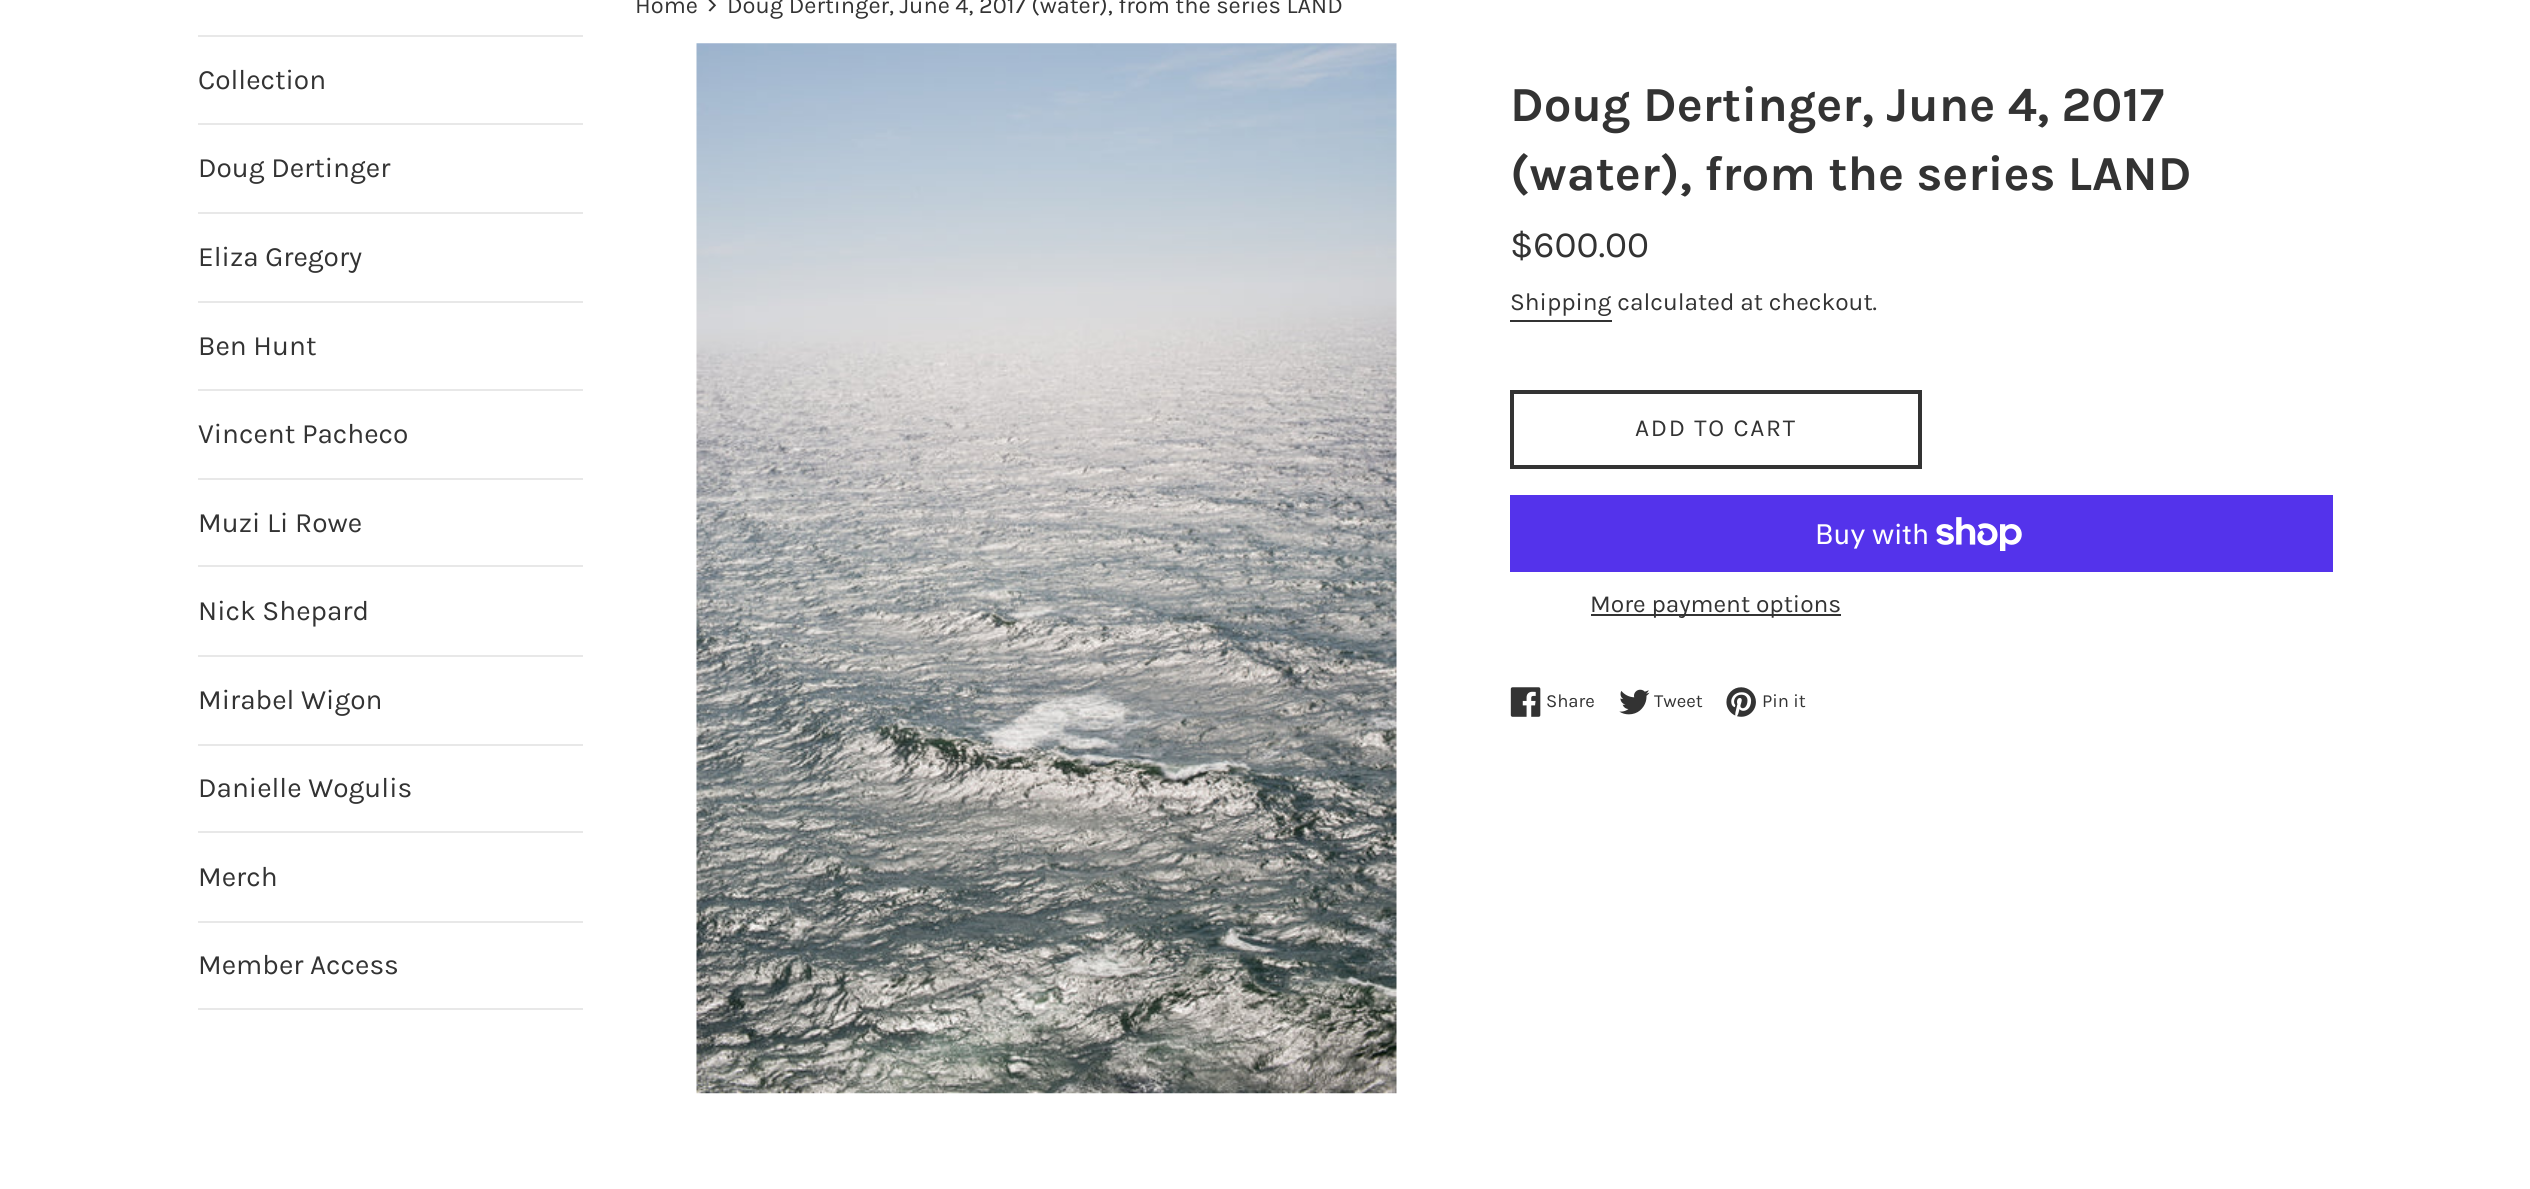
import math
import cairo


def use_color(cr, r, g, b):
  cr.set_source_rgb(r / 255, g / 255, b / 255)

def text(cr, x, y, s, family, size, color, bold=False, italic=False):
  cr.select_font_face(family, cairo.FONT_SLANT_ITALIC if italic else cairo.FONT_SLANT_NORMAL, cairo.FONT_WEIGHT_BOLD if bold else cairo.FONT_WEIGHT_NORMAL)
  cr.set_font_size(size)
  use_color(cr, *color)
  cr.move_to(x, y)
  cr.show_text(s)

def spaced_text(cr, x, y, s, letter, word):
  cr.move_to(x, y)
  for ch in s:
    cr.show_text(ch)
    cr.rel_move_to(letter + word * (ch == ' '), 0)

def box(cr, x, y, w, h, *color):
  use_color(cr, *color)
  cr.rectangle(x, y, w, h)
  cr.fill()

def picture(cr, path, x, y, w, h):
  cr.save()
  cr.set_source_surface(cairo.ImageSurface.create_from_png(path), x, y)
  cr.rectangle(x, y, w, h)
  cr.fill()
  cr.restore()

def draw(cr):
  use_color(cr, 255, 255, 255)
  cr.paint()
  box(cr, 198, 35, 385, 2, 232, 232, 232)
  box(cr, 198, 123, 385, 2, 232, 232, 232)
  box(cr, 198, 212, 385, 2, 232, 232, 232)
  box(cr, 198, 301, 385, 2, 232, 232, 232)
  box(cr, 198, 389, 385, 2, 232, 232, 232)
  box(cr, 198, 478, 385, 2, 232, 232, 232)
  box(cr, 198, 565, 385, 2, 232, 232, 232)
  box(cr, 198, 655, 385, 2, 232, 232, 232)
  box(cr, 198, 744, 385, 2, 232, 232, 232)
  box(cr, 198, 831, 385, 2, 232, 232, 232)
  box(cr, 198, 921, 385, 2, 232, 232, 232)
  box(cr, 198, 1008, 385, 2, 232, 232, 232)
  picture(cr, "img_01.png", 696, 43, 701, 1051)
  box(cr, 1510, 320, 102, 2, 51, 51, 51)
  cr.rectangle(1512, 392, 408, 75)
  cr.set_line_width(4)
  cr.stroke()
  box(cr, 1510, 495, 823, 77, 84, 51, 235)
  picture(cr, "img_02.png", 1936, 517, 86, 34)
  box(cr, 1591, 614, 250, 2, 51, 51, 51)
  picture(cr, "img_03.png", 1510, 687, 31, 30)
  picture(cr, "img_04.png", 1619, 689, 31, 26)
  picture(cr, "img_05.png", 1726, 687, 30, 30)
  text(cr, 198, 89, "Collection", "Karla", 28, (51, 51, 51))
  text(cr, 198, 177, "Doug Dertinger", "Karla", 28, (51, 51, 51))
  text(cr, 198, 266, "Eliza Gregory", "Karla", 28, (51, 51, 51))
  text(cr, 198, 355, "Ben Hunt", "Karla", 28, (51, 51, 51))
  text(cr, 198, 443, "Vincent Pacheco", "Karla", 28, (51, 51, 51))
  text(cr, 198, 532, "Muzi Li Rowe", "Karla", 28, (51, 51, 51))
  text(cr, 198, 620, "Nick Shepard", "Karla", 28, (51, 51, 51))
  text(cr, 198, 709, "Mirabel Wigon", "Karla", 28, (51, 51, 51))
  text(cr, 198, 797, "Danielle Wogulis", "Karla", 28, (51, 51, 51))
  text(cr, 198, 886, "Merch", "Karla", 28, (51, 51, 51))
  text(cr, 198, 974, "Member Access", "Karla", 28, (51, 51, 51))
  text(cr, 635, 13, "Home", "Karla", 23.6, (51, 51, 51))
  text(cr, 707, 13, "›", "Karla", 29, (51, 51, 51))
  text(cr, 727, 13, "Doug Dertinger, June 4, 2017 (water), from the series LAND", "Karla", 23.6, (51, 51, 51))
  text(cr, 1510, 121, "Doug Dertinger, June 4, 2017", "Karla", 49, (51, 51, 51), bold=True)
  text(cr, 1510, 190, "(water), from the series LAND", "Karla", 49, (51, 51, 51), bold=True)
  text(cr, 1510, 257, "$600.00", "Karla", 37, (51, 51, 51))
  text(cr, 1510, 310, "Shipping calculated at checkout.", "Karla", 24.5, (51, 51, 51))
  spaced_text(cr, 1635, 436, "ADD TO CART", 1.75, 0)
  text(cr, 1815, 544, "Buy with", "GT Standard", 28, (255, 255, 255))
  text(cr, 1590, 612, "More payment options", "Karla", 24.5, (51, 51, 51))
  text(cr, 1546, 707, "Share", "Karla", 18.5, (51, 51, 51))
  text(cr, 1654, 707, "Tweet", "Karla", 18.5, (51, 51, 51))
  text(cr, 1762, 707, "Pin it", "Karla", 18.5, (51, 51, 51))


surface = cairo.ImageSurface(cairo.FORMAT_RGB24, 2530, 1189)
cr = cairo.Context(surface)
options = cairo.FontOptions()
options.set_hint_metrics(cairo.HINT_METRICS_OFF)
options.set_hint_style(cairo.HINT_STYLE_NONE)
cr.set_font_options(options)
cr.set_miter_limit(4)
draw(cr)
surface.write_to_png("out.png")
